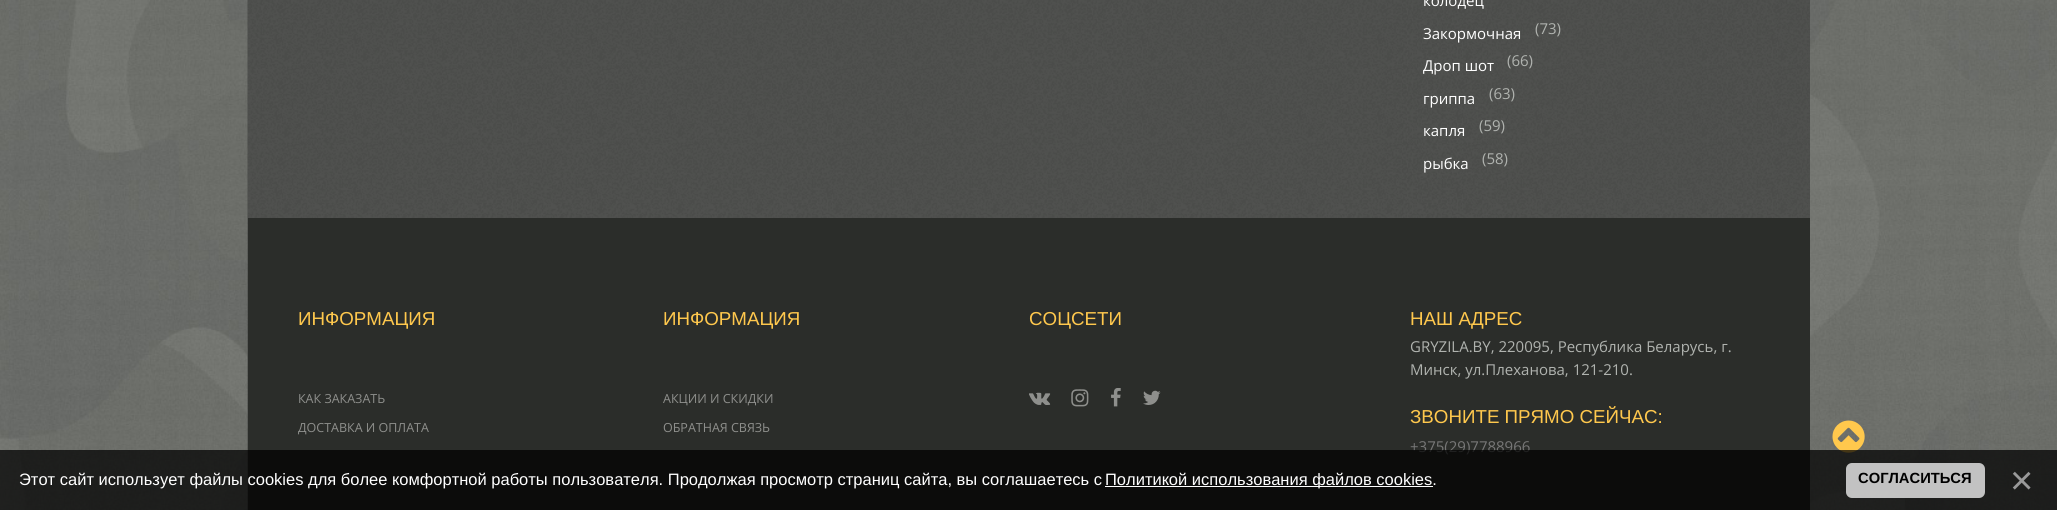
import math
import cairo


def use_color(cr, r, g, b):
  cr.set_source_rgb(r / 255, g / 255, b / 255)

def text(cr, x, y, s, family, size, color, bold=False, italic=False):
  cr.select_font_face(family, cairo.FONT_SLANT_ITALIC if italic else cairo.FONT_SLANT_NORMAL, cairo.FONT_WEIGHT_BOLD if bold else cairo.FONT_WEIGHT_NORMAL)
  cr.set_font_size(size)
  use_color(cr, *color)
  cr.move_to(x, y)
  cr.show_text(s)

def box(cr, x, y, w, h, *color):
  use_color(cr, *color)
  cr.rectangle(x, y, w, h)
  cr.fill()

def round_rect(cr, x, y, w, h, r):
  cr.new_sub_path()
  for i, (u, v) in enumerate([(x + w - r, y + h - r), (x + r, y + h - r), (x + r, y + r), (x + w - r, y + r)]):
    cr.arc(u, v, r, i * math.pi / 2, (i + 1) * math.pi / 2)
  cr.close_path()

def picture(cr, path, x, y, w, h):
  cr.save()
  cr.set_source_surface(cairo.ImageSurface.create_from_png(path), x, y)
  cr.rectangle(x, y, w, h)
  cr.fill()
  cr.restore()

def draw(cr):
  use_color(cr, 255, 255, 255)
  cr.paint()
  picture(cr, "img_01.png", 0, 0, 2057, 510)
  picture(cr, "img_02.png", 247, 0, 1563, 510)
  box(cr, 248, 218, 1562, 292, 43, 45, 42)
  picture(cr, "img_03.png", 1029, 392, 22, 13)
  picture(cr, "img_04.png", 1071, 389, 18, 18)
  picture(cr, "img_05.png", 1111, 388, 10, 19)
  picture(cr, "img_06.png", 1143, 390, 18, 15)
  picture(cr, "img_07.png", 1832, 420, 33, 33)
  text(cr, 1423, 6, "колодец", "Open Sans", 15, (255, 255, 255))
  text(cr, 1423, 39, "Закормочная", "Open Sans", 15, (255, 255, 255))
  text(cr, 1535, 34, "(73)", "Open Sans", 15, (176, 179, 175))
  text(cr, 1423, 71, "Дроп шот", "Open Sans", 15, (255, 255, 255))
  text(cr, 1507, 66, "(66)", "Open Sans", 15, (176, 179, 175))
  text(cr, 1423, 104, "гриппа", "Open Sans", 15, (255, 255, 255))
  text(cr, 1489, 99, "(63)", "Open Sans", 15, (176, 179, 175))
  text(cr, 1423, 136, "капля", "Open Sans", 15, (255, 255, 255))
  text(cr, 1479, 131, "(59)", "Open Sans", 15, (176, 179, 175))
  text(cr, 1423, 169, "рыбка", "Open Sans", 15, (255, 255, 255))
  text(cr, 1482, 164, "(58)", "Open Sans", 15, (176, 179, 175))
  text(cr, 298, 325, "ИНФОРМАЦИЯ", "Liberation Sans", 18.75, (255, 200, 77))
  text(cr, 298, 403, "КАК ЗАКАЗАТЬ", "Open Sans", 12.5, (142, 143, 140))
  cr.save()
  cr.rectangle(298, 309, 1462, 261)
  cr.clip()
  text(cr, 298, 432, "ДОСТАВКА И ОПЛАТА", "Open Sans", 12.5, (142, 143, 140))
  cr.restore()
  text(cr, 663, 325, "ИНФОРМАЦИЯ", "Liberation Sans", 18.75, (255, 200, 77))
  text(cr, 663, 403, "АКЦИИ И СКИДКИ", "Open Sans", 12.5, (142, 143, 140))
  text(cr, 663, 432, "ОБРАТНАЯ СВЯЗЬ", "Open Sans", 12.5, (142, 143, 140))
  text(cr, 1029, 325, "СОЦСЕТИ", "Liberation Sans", 18.75, (255, 200, 77))
  text(cr, 1410, 325, "НАШ АДРЕС", "Liberation Sans", 18.75, (255, 200, 77))
  text(cr, 1410, 352, "GRYZILA.BY, 220095, Республика Беларусь, г.", "Open Sans", 15, (176, 179, 175))
  text(cr, 1410, 375, "Минск, ул.Плеханова, 121-210.", "Open Sans", 15, (176, 179, 175))
  text(cr, 1410, 423, "ЗВОНИТЕ ПРЯМО СЕЙЧАС:", "Liberation Sans", 18.75, (255, 200, 77))
  text(cr, 1410, 452, "+375(29)7788966", "Open Sans", 15, (119, 119, 119))
  cr.set_source_rgba(0, 0, 0, 0.73)
  cr.rectangle(0, 450, 2057, 60)
  cr.fill()
  text(cr, 19, 485, "Этот сайт использует файлы cookies для более комфортной работы пользователя. Продолжая просмотр страниц сайта, вы соглашаетесь с", "Liberation Sans", 16.5, (255, 255, 255))
  box(cr, 1105, 486, 328, 1, 255, 255, 255)
  text(cr, 1105, 485, "Политикой использования файлов cookies.", "Liberation Sans", 16.5, (255, 255, 255))
  cr.set_source_rgba(1, 1, 1, 0.73)
  round_rect(cr, 1846, 463, 139, 35, 6)
  cr.fill()
  text(cr, 1858, 483, "СОГЛАСИТЬСЯ", "Liberation Sans", 14.75, (0, 0, 0), bold=True)
  text(cr, 2010, 494, "×", "Liberation Sans", 40, (153, 153, 153))


surface = cairo.ImageSurface(cairo.FORMAT_RGB24, 2057, 510)
cr = cairo.Context(surface)
options = cairo.FontOptions()
options.set_hint_metrics(cairo.HINT_METRICS_OFF)
options.set_hint_style(cairo.HINT_STYLE_NONE)
cr.set_font_options(options)
cr.set_miter_limit(4)
draw(cr)
surface.write_to_png("out.png")
